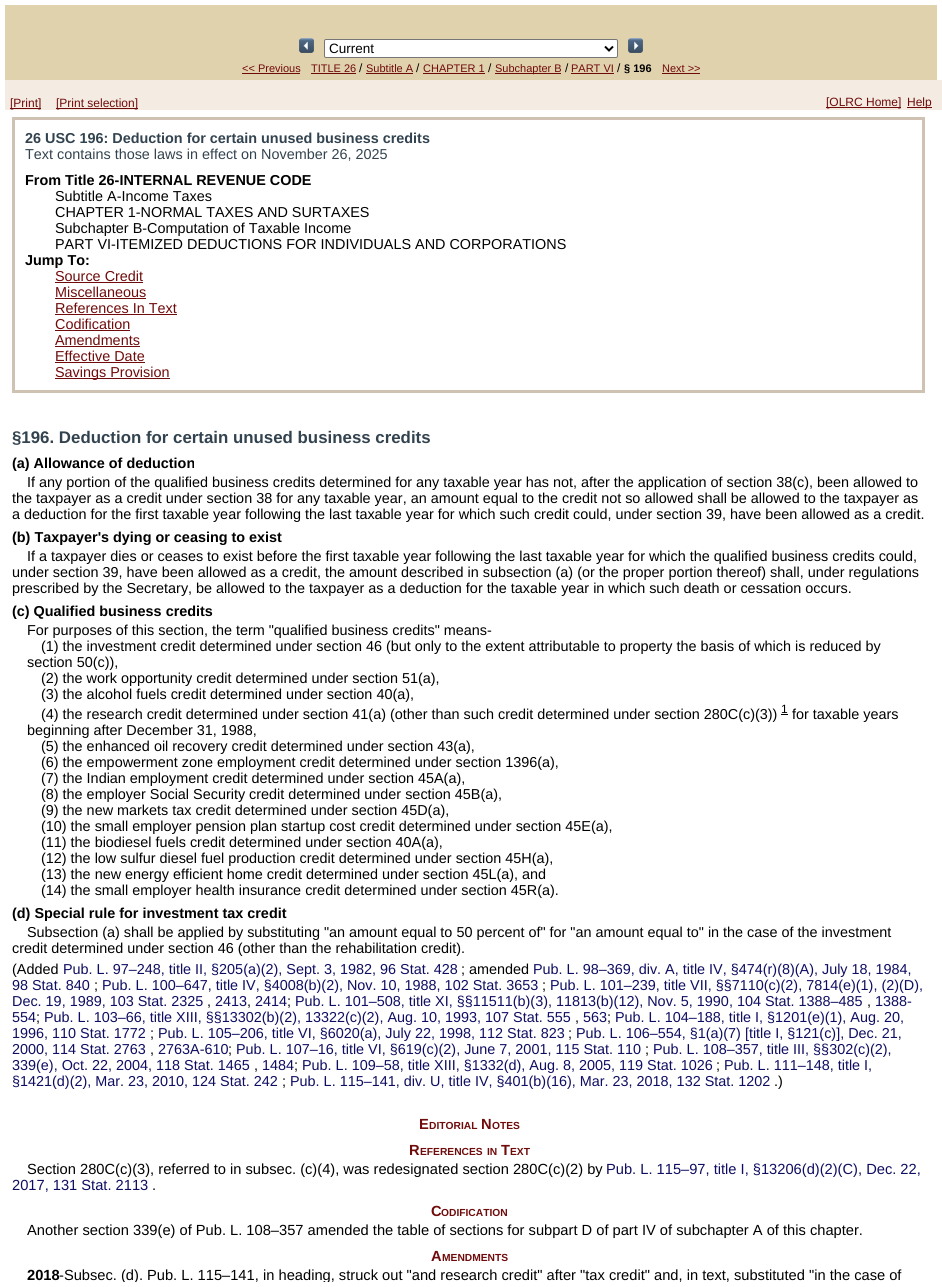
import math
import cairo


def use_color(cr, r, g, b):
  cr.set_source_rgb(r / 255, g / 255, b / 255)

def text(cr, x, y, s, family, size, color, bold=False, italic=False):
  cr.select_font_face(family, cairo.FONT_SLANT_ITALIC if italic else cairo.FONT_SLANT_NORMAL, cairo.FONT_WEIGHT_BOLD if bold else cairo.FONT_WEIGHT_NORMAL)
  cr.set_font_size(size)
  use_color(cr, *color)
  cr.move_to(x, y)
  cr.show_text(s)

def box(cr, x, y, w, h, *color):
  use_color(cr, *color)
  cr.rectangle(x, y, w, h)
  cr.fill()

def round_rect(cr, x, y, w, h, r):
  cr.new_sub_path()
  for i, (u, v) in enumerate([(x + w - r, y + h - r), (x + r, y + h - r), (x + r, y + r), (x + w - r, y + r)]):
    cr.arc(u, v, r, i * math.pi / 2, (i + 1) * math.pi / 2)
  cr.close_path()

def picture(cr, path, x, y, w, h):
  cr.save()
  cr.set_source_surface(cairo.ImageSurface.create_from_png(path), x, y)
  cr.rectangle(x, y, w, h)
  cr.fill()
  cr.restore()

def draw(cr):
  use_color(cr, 255, 255, 255)
  cr.paint()
  box(cr, 5, 5, 932, 75, 225, 210, 174)
  picture(cr, "img_01.png", 299, 38, 15, 15)
  use_color(cr, 255, 255, 255)
  round_rect(cr, 324.5, 39.5, 293, 18, 1.5)
  cr.fill_preserve()
  use_color(cr, 118, 118, 118)
  cr.set_line_width(1)
  cr.stroke()
  cr.new_path()
  cr.move_to(605, 46.5)
  cr.line_to(609, 50.5)
  cr.line_to(613, 46.5)
  use_color(cr, 0, 0, 0)
  cr.set_line_width(2)
  cr.stroke()
  picture(cr, "img_02.png", 628, 38, 15, 15)
  box(cr, 242, 73, 58, 1, 111, 11, 11)
  box(cr, 311, 73, 45, 1, 111, 11, 11)
  box(cr, 366, 73, 47, 1, 111, 11, 11)
  box(cr, 423, 73, 62, 1, 111, 11, 11)
  box(cr, 495, 73, 66, 1, 111, 11, 11)
  box(cr, 571, 73, 43, 1, 111, 11, 11)
  box(cr, 662, 73, 38, 1, 111, 11, 11)
  box(cr, 5, 80, 937, 30, 244, 236, 226)
  box(cr, 10, 108, 31, 1, 111, 11, 11)
  box(cr, 56, 108, 82, 1, 111, 11, 11)
  box(cr, 826, 107, 75, 1, 111, 11, 11)
  box(cr, 907, 107, 25, 1, 111, 11, 11)
  cr.rectangle(13.5, 118.5, 910, 273)
  use_color(cr, 207, 194, 178)
  cr.set_line_width(3)
  cr.stroke()
  box(cr, 55, 282, 88, 1, 111, 11, 11)
  box(cr, 55, 298, 91, 1, 111, 11, 11)
  box(cr, 55, 314, 122, 1, 111, 11, 11)
  box(cr, 55, 330, 75, 1, 111, 11, 11)
  box(cr, 55, 346, 85, 1, 111, 11, 11)
  box(cr, 55, 362, 90, 1, 111, 11, 11)
  box(cr, 55, 378, 115, 1, 111, 11, 11)
  box(cr, 781, 714, 7, 1, 0, 0, 0)
  text(cr, 329, 53, "Current", "Liberation Sans", 13.5, (0, 0, 0))
  text(cr, 242, 72, "<< Previous", "Liberation Sans", 11, (111, 11, 11))
  text(cr, 311, 72, "TITLE 26", "Liberation Sans", 11, (111, 11, 11))
  text(cr, 359, 72, "/", "Liberation Sans", 12, (0, 0, 0))
  text(cr, 366, 72, "Subtitle A", "Liberation Sans", 11, (111, 11, 11))
  text(cr, 416, 72, "/", "Liberation Sans", 12, (0, 0, 0))
  text(cr, 423, 72, "CHAPTER 1", "Liberation Sans", 11, (111, 11, 11))
  text(cr, 488, 72, "/", "Liberation Sans", 12, (0, 0, 0))
  text(cr, 495, 72, "Subchapter B", "Liberation Sans", 11, (111, 11, 11))
  text(cr, 565, 72, "/", "Liberation Sans", 12, (0, 0, 0))
  text(cr, 571, 72, "PART VI", "Liberation Sans", 11, (111, 11, 11))
  text(cr, 617, 72, "/", "Liberation Sans", 12, (0, 0, 0))
  text(cr, 624, 72, "§ 196", "Liberation Sans", 11, (0, 0, 0), bold=True)
  text(cr, 662, 72, "Next >>", "Liberation Sans", 11, (111, 11, 11))
  text(cr, 10, 107, "[Print]", "Liberation Sans", 12, (111, 11, 11))
  text(cr, 56, 107, "[Print selection]", "Liberation Sans", 12, (111, 11, 11))
  text(cr, 826, 106, "[OLRC Home]", "Liberation Sans", 12, (111, 11, 11))
  text(cr, 907, 106, "Help", "Liberation Sans", 12, (111, 11, 11))
  text(cr, 25, 143, "26 USC 196: Deduction for certain unused business credits", "Liberation Sans", 14.4, (50, 67, 79), bold=True)
  text(cr, 25, 159, "Text contains those laws in effect on November 26, 2025", "Liberation Sans", 14.4, (50, 67, 79))
  text(cr, 25, 185, "From Title 26-INTERNAL REVENUE CODE", "Liberation Sans", 14.4, (0, 0, 0), bold=True)
  text(cr, 55, 201, "Subtitle A-Income Taxes", "Liberation Sans", 14.4, (0, 0, 0))
  text(cr, 55, 217, "CHAPTER 1-NORMAL TAXES AND SURTAXES", "Liberation Sans", 14.4, (0, 0, 0))
  text(cr, 55, 233, "Subchapter B-Computation of Taxable Income", "Liberation Sans", 14.4, (0, 0, 0))
  text(cr, 55, 249, "PART VI-ITEMIZED DEDUCTIONS FOR INDIVIDUALS AND CORPORATIONS", "Liberation Sans", 14.4, (0, 0, 0))
  text(cr, 25, 265, "Jump To:", "Liberation Sans", 14.4, (0, 0, 0), bold=True)
  text(cr, 55, 281, "Source Credit", "Liberation Sans", 14.4, (111, 11, 11))
  text(cr, 55, 297, "Miscellaneous", "Liberation Sans", 14.4, (111, 11, 11))
  text(cr, 55, 313, "References In Text", "Liberation Sans", 14.4, (111, 11, 11))
  text(cr, 55, 329, "Codification", "Liberation Sans", 14.4, (111, 11, 11))
  text(cr, 55, 345, "Amendments", "Liberation Sans", 14.4, (111, 11, 11))
  text(cr, 55, 361, "Effective Date", "Liberation Sans", 14.4, (111, 11, 11))
  text(cr, 55, 377, "Savings Provision", "Liberation Sans", 14.4, (111, 11, 11))
  text(cr, 12, 443, "§196. Deduction for certain unused business credits", "Liberation Sans", 16.85, (50, 67, 79), bold=True)
  text(cr, 12, 468, "(a) Allowance of deduction", "Liberation Sans", 14.4, (0, 0, 0), bold=True)
  text(cr, 27, 487, "If any portion of the qualified business credits determined for any taxable year has not, after the application of section 38(c), been allowed to", "Liberation Sans", 14.4, (0, 0, 0))
  text(cr, 12, 503, "the taxpayer as a credit under section 38 for any taxable year, an amount equal to the credit not so allowed shall be allowed to the taxpayer as", "Liberation Sans", 14.4, (0, 0, 0))
  text(cr, 12, 519, "a deduction for the first taxable year following the last taxable year for which such credit could, under section 39, have been allowed as a credit.", "Liberation Sans", 14.4, (0, 0, 0))
  text(cr, 12, 542, "(b) Taxpayer's dying or ceasing to exist", "Liberation Sans", 14.4, (0, 0, 0), bold=True)
  text(cr, 27, 561, "If a taxpayer dies or ceases to exist before the first taxable year following the last taxable year for which the qualified business credits could,", "Liberation Sans", 14.4, (0, 0, 0))
  text(cr, 12, 577, "under section 39, have been allowed as a credit, the amount described in subsection (a) (or the proper portion thereof) shall, under regulations", "Liberation Sans", 14.4, (0, 0, 0))
  text(cr, 12, 593, "prescribed by the Secretary, be allowed to the taxpayer as a deduction for the taxable year in which such death or cessation occurs.", "Liberation Sans", 14.4, (0, 0, 0))
  text(cr, 12, 616, "(c) Qualified business credits", "Liberation Sans", 14.4, (0, 0, 0), bold=True)
  text(cr, 27, 635, "For purposes of this section, the term \"qualified business credits\" means-", "Liberation Sans", 14.4, (0, 0, 0))
  text(cr, 41, 651, "(1) the investment credit determined under section 46 (but only to the extent attributable to property the basis of which is reduced by", "Liberation Sans", 14.4, (0, 0, 0))
  text(cr, 27, 667, "section 50(c)),", "Liberation Sans", 14.4, (0, 0, 0))
  text(cr, 41, 683, "(2) the work opportunity credit determined under section 51(a),", "Liberation Sans", 14.4, (0, 0, 0))
  text(cr, 41, 699, "(3) the alcohol fuels credit determined under section 40(a),", "Liberation Sans", 14.4, (0, 0, 0))
  text(cr, 41, 719, "(4) the research credit determined under section 41(a) (other than such credit determined under section 280C(c)(3))", "Liberation Sans", 14.4, (0, 0, 0))
  text(cr, 781, 713, "1", "Liberation Sans", 12, (0, 0, 0))
  text(cr, 792, 719, "for taxable years", "Liberation Sans", 14.4, (0, 0, 0))
  text(cr, 27, 735, "beginning after December 31, 1988,", "Liberation Sans", 14.4, (0, 0, 0))
  text(cr, 41, 751, "(5) the enhanced oil recovery credit determined under section 43(a),", "Liberation Sans", 14.4, (0, 0, 0))
  text(cr, 41, 767, "(6) the empowerment zone employment credit determined under section 1396(a),", "Liberation Sans", 14.4, (0, 0, 0))
  text(cr, 41, 783, "(7) the Indian employment credit determined under section 45A(a),", "Liberation Sans", 14.4, (0, 0, 0))
  text(cr, 41, 799, "(8) the employer Social Security credit determined under section 45B(a),", "Liberation Sans", 14.4, (0, 0, 0))
  text(cr, 41, 815, "(9) the new markets tax credit determined under section 45D(a),", "Liberation Sans", 14.4, (0, 0, 0))
  text(cr, 41, 831, "(10) the small employer pension plan startup cost credit determined under section 45E(a),", "Liberation Sans", 14.4, (0, 0, 0))
  text(cr, 41, 847, "(11) the biodiesel fuels credit determined under section 40A(a),", "Liberation Sans", 14.4, (0, 0, 0))
  text(cr, 41, 863, "(12) the low sulfur diesel fuel production credit determined under section 45H(a),", "Liberation Sans", 14.4, (0, 0, 0))
  text(cr, 41, 879, "(13) the new energy efficient home credit determined under section 45L(a), and", "Liberation Sans", 14.4, (0, 0, 0))
  text(cr, 41, 895, "(14) the small employer health insurance credit determined under section 45R(a).", "Liberation Sans", 14.4, (0, 0, 0))
  text(cr, 12, 918, "(d) Special rule for investment tax credit", "Liberation Sans", 14.4, (0, 0, 0), bold=True)
  text(cr, 27, 937, "Subsection (a) shall be applied by substituting \"an amount equal to 50 percent of\" for \"an amount equal to\" in the case of the investment", "Liberation Sans", 14.4, (0, 0, 0))
  text(cr, 12, 953, "credit determined under section 46 (other than the rehabilitation credit).", "Liberation Sans", 14.4, (0, 0, 0))
  text(cr, 12, 974, "(Added", "Liberation Sans", 14.4, (0, 0, 0))
  text(cr, 63, 974, "Pub. L. 97–248, title II, §205(a)(2), Sept. 3, 1982, 96 Stat. 428", "Liberation Sans", 14.4, (15, 13, 97))
  text(cr, 461, 974, "; amended", "Liberation Sans", 14.4, (0, 0, 0))
  text(cr, 533, 974, "Pub. L. 98–369, div. A, title IV, §474(r)(8)(A), July 18, 1984,", "Liberation Sans", 14.4, (15, 13, 97))
  text(cr, 12, 990, "98 Stat. 840", "Liberation Sans", 14.4, (15, 13, 97))
  text(cr, 94, 990, ";", "Liberation Sans", 14.4, (0, 0, 0))
  text(cr, 102, 990, "Pub. L. 100–647, title IV, §4008(b)(2), Nov. 10, 1988, 102 Stat. 3653", "Liberation Sans", 14.4, (15, 13, 97))
  text(cr, 542, 990, ";", "Liberation Sans", 14.4, (0, 0, 0))
  text(cr, 550, 990, "Pub. L. 101–239, title VII, §§7110(c)(2), 7814(e)(1), (2)(D),", "Liberation Sans", 14.4, (15, 13, 97))
  text(cr, 12, 1006, "Dec. 19, 1989, 103 Stat. 2325", "Liberation Sans", 14.4, (15, 13, 97))
  text(cr, 207, 1006, ",", "Liberation Sans", 14.4, (0, 0, 0))
  text(cr, 215, 1006, "2413", "Liberation Sans", 14.4, (15, 13, 97))
  text(cr, 247, 1006, ",", "Liberation Sans", 14.4, (0, 0, 0))
  text(cr, 255, 1006, "2414", "Liberation Sans", 14.4, (15, 13, 97))
  text(cr, 287, 1006, ";", "Liberation Sans", 14.4, (0, 0, 0))
  text(cr, 295, 1006, "Pub. L. 101–508, title XI, §§11511(b)(3), 11813(b)(12), Nov. 5, 1990, 104 Stat. 1388–485", "Liberation Sans", 14.4, (15, 13, 97))
  text(cr, 867, 1006, ",", "Liberation Sans", 14.4, (0, 0, 0))
  text(cr, 875, 1006, "1388-", "Liberation Sans", 14.4, (15, 13, 97))
  text(cr, 12, 1022, "554", "Liberation Sans", 14.4, (15, 13, 97))
  text(cr, 36, 1022, ";", "Liberation Sans", 14.4, (0, 0, 0))
  text(cr, 44, 1022, "Pub. L. 103–66, title XIII, §§13302(b)(2), 13322(c)(2), Aug. 10, 1993, 107 Stat. 555", "Liberation Sans", 14.4, (15, 13, 97))
  text(cr, 575, 1022, ",", "Liberation Sans", 14.4, (0, 0, 0))
  text(cr, 583, 1022, "563", "Liberation Sans", 14.4, (15, 13, 97))
  text(cr, 607, 1022, ";", "Liberation Sans", 14.4, (0, 0, 0))
  text(cr, 615, 1022, "Pub. L. 104–188, title I, §1201(e)(1), Aug. 20,", "Liberation Sans", 14.4, (15, 13, 97))
  text(cr, 12, 1038, "1996, 110 Stat. 1772", "Liberation Sans", 14.4, (15, 13, 97))
  text(cr, 150, 1038, ";", "Liberation Sans", 14.4, (0, 0, 0))
  text(cr, 158, 1038, "Pub. L. 105–206, title VI, §6020(a), July 22, 1998, 112 Stat. 823", "Liberation Sans", 14.4, (15, 13, 97))
  text(cr, 568, 1038, ";", "Liberation Sans", 14.4, (0, 0, 0))
  text(cr, 576, 1038, "Pub. L. 106–554, §1(a)(7) [title I, §121(c)], Dec. 21,", "Liberation Sans", 14.4, (15, 13, 97))
  text(cr, 12, 1054, "2000, 114 Stat. 2763", "Liberation Sans", 14.4, (15, 13, 97))
  text(cr, 150, 1054, ",", "Liberation Sans", 14.4, (0, 0, 0))
  text(cr, 158, 1054, "2763A-610", "Liberation Sans", 14.4, (15, 13, 97))
  text(cr, 228, 1054, ";", "Liberation Sans", 14.4, (0, 0, 0))
  text(cr, 236, 1054, "Pub. L. 107–16, title VI, §619(c)(2), June 7, 2001, 115 Stat. 110", "Liberation Sans", 14.4, (15, 13, 97))
  text(cr, 645, 1054, ";", "Liberation Sans", 14.4, (0, 0, 0))
  text(cr, 653, 1054, "Pub. L. 108–357, title III, §§302(c)(2),", "Liberation Sans", 14.4, (15, 13, 97))
  text(cr, 12, 1070, "339(e), Oct. 22, 2004, 118 Stat. 1465", "Liberation Sans", 14.4, (15, 13, 97))
  text(cr, 254, 1070, ",", "Liberation Sans", 14.4, (0, 0, 0))
  text(cr, 262, 1070, "1484", "Liberation Sans", 14.4, (15, 13, 97))
  text(cr, 294, 1070, ";", "Liberation Sans", 14.4, (0, 0, 0))
  text(cr, 302, 1070, "Pub. L. 109–58, title XIII, §1332(d), Aug. 8, 2005, 119 Stat. 1026", "Liberation Sans", 14.4, (15, 13, 97))
  text(cr, 716, 1070, ";", "Liberation Sans", 14.4, (0, 0, 0))
  text(cr, 724, 1070, "Pub. L. 111–148, title I,", "Liberation Sans", 14.4, (15, 13, 97))
  text(cr, 12, 1086, "§1421(d)(2), Mar. 23, 2010, 124 Stat. 242", "Liberation Sans", 14.4, (15, 13, 97))
  text(cr, 282, 1086, ";", "Liberation Sans", 14.4, (0, 0, 0))
  text(cr, 290, 1086, "Pub. L. 115–141, div. U, title IV, §401(b)(16), Mar. 23, 2018, 132 Stat. 1202", "Liberation Sans", 14.4, (15, 13, 97))
  text(cr, 774, 1086, ".)", "Liberation Sans", 14.4, (0, 0, 0))
  text(cr, 419, 1129, "E", "Liberation Sans", 14.67, (111, 11, 11), bold=True)
  text(cr, 429, 1129, "DITORIAL", "Liberation Sans", 10.25, (111, 11, 11), bold=True)
  text(cr, 481, 1129, "N", "Liberation Sans", 14.67, (111, 11, 11), bold=True)
  text(cr, 492, 1129, "OTES", "Liberation Sans", 10.25, (111, 11, 11), bold=True)
  text(cr, 409, 1155, "R", "Liberation Sans", 14.67, (111, 11, 11), bold=True)
  text(cr, 420, 1155, "EFERENCES", "Liberation Sans", 10.25, (111, 11, 11), bold=True)
  text(cr, 487, 1155, "IN", "Liberation Sans", 10.25, (111, 11, 11), bold=True)
  text(cr, 501, 1155, "T", "Liberation Sans", 14.67, (111, 11, 11), bold=True)
  text(cr, 510, 1155, "EXT", "Liberation Sans", 10.25, (111, 11, 11), bold=True)
  text(cr, 27, 1174, "Section 280C(c)(3), referred to in subsec. (c)(4), was redesignated section 280C(c)(2) by", "Liberation Sans", 14.67, (0, 0, 0))
  text(cr, 606, 1174, "Pub. L. 115–97, title I, §13206(d)(2)(C), Dec. 22,", "Liberation Sans", 14.67, (15, 13, 97))
  text(cr, 12, 1190, "2017, 131 Stat. 2113", "Liberation Sans", 14.67, (15, 13, 97))
  text(cr, 152, 1190, ".", "Liberation Sans", 14.67, (0, 0, 0))
  text(cr, 431, 1216, "C", "Liberation Sans", 14.67, (111, 11, 11), bold=True)
  text(cr, 441, 1216, "ODIFICATION", "Liberation Sans", 10.25, (111, 11, 11), bold=True)
  text(cr, 27, 1235, "Another section 339(e) of Pub. L. 108–357 amended the table of sections for subpart D of part IV of subchapter A of this chapter.", "Liberation Sans", 14.67, (0, 0, 0))
  text(cr, 431, 1261, "A", "Liberation Sans", 14.67, (111, 11, 11), bold=True)
  text(cr, 442, 1261, "MENDMENTS", "Liberation Sans", 10.25, (111, 11, 11), bold=True)
  text(cr, 27, 1280, "2018", "Liberation Sans", 14.67, (0, 0, 0), bold=True)
  cr.save()
  cr.rectangle(5, 110, 932, 1172)
  cr.clip()
  text(cr, 59, 1280, "-Subsec. (d).", "Liberation Sans", 14.67, (0, 0, 0))
  cr.restore()
  text(cr, 147, 1280, "Pub. L. 115–141,", "Liberation Sans", 14.67, (0, 0, 0))
  cr.save()
  cr.rectangle(5, 110, 932, 1172)
  cr.clip()
  text(cr, 263, 1280, "in heading, struck out \"and research credit\" after \"tax credit\" and, in text, substituted \"in the case of", "Liberation Sans", 14.67, (0, 0, 0))
  cr.restore()


surface = cairo.ImageSurface(cairo.FORMAT_RGB24, 942, 1287)
cr = cairo.Context(surface)
options = cairo.FontOptions()
options.set_hint_metrics(cairo.HINT_METRICS_OFF)
options.set_hint_style(cairo.HINT_STYLE_NONE)
cr.set_font_options(options)
cr.set_miter_limit(4)
draw(cr)
surface.write_to_png("out.png")
